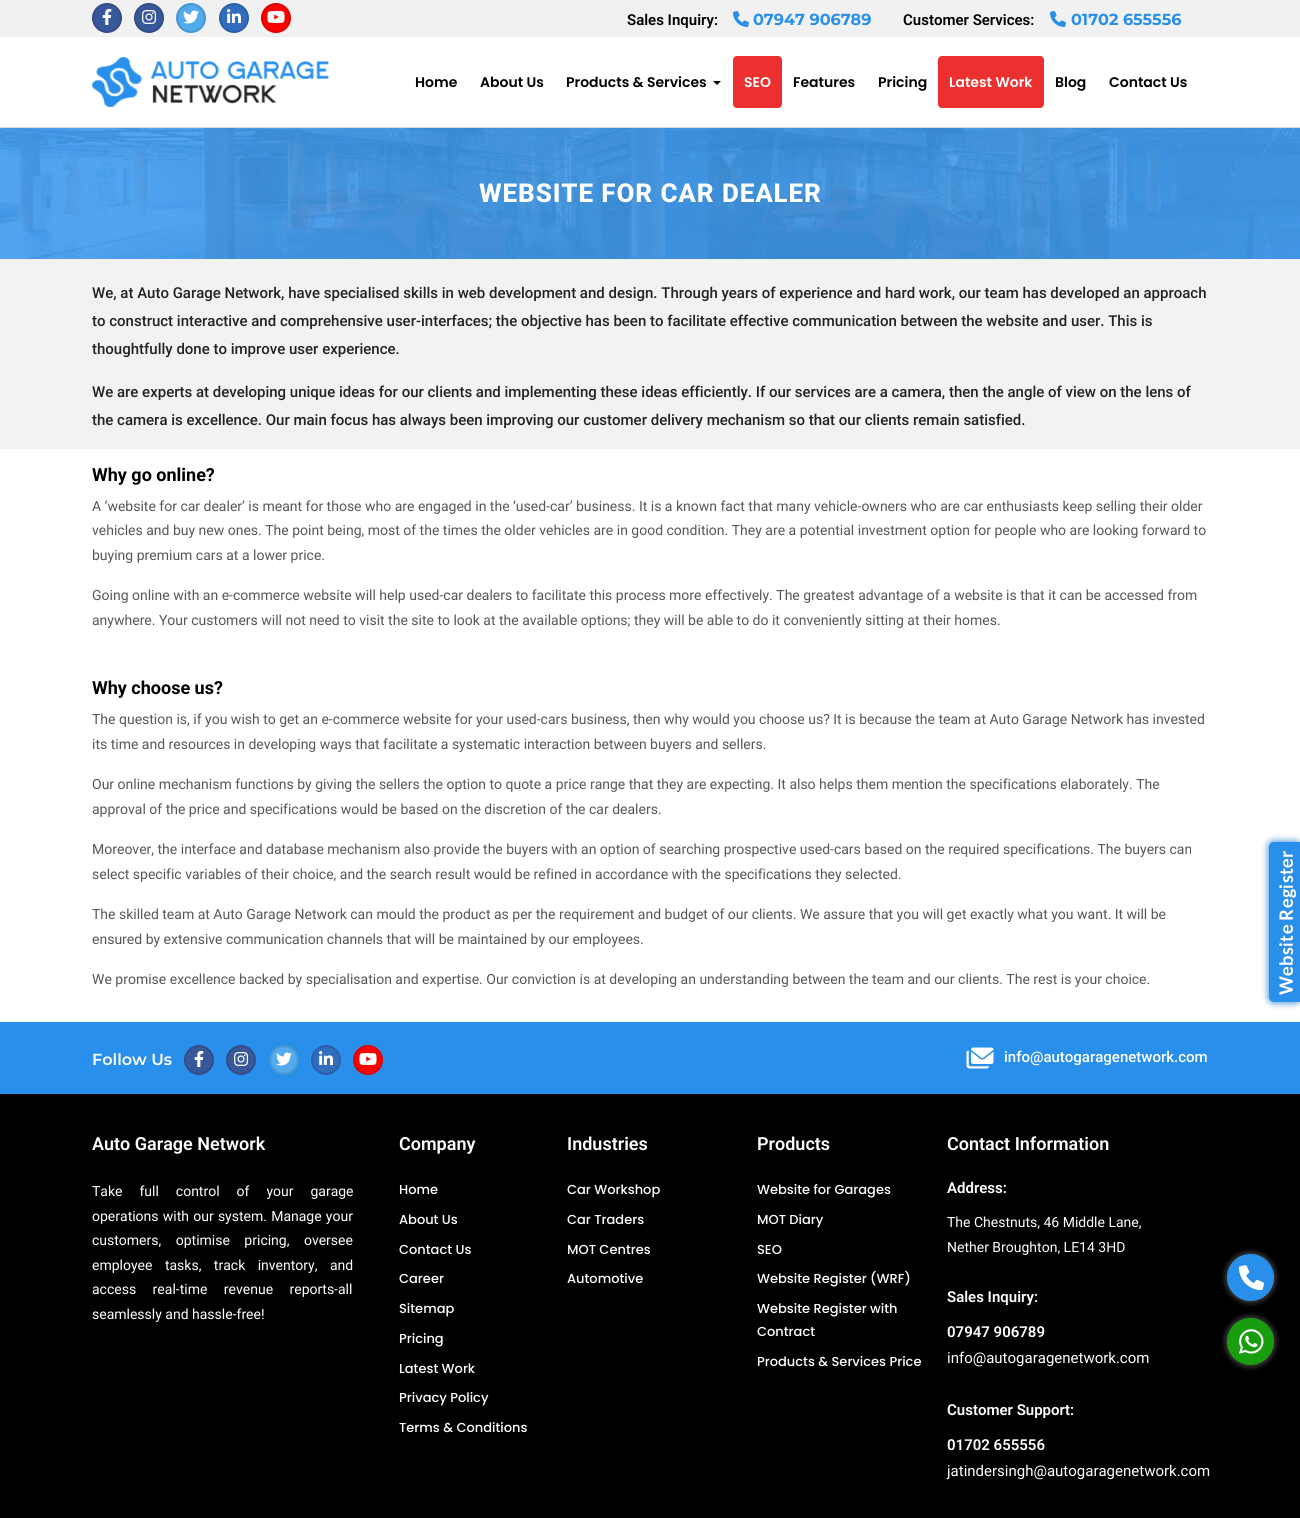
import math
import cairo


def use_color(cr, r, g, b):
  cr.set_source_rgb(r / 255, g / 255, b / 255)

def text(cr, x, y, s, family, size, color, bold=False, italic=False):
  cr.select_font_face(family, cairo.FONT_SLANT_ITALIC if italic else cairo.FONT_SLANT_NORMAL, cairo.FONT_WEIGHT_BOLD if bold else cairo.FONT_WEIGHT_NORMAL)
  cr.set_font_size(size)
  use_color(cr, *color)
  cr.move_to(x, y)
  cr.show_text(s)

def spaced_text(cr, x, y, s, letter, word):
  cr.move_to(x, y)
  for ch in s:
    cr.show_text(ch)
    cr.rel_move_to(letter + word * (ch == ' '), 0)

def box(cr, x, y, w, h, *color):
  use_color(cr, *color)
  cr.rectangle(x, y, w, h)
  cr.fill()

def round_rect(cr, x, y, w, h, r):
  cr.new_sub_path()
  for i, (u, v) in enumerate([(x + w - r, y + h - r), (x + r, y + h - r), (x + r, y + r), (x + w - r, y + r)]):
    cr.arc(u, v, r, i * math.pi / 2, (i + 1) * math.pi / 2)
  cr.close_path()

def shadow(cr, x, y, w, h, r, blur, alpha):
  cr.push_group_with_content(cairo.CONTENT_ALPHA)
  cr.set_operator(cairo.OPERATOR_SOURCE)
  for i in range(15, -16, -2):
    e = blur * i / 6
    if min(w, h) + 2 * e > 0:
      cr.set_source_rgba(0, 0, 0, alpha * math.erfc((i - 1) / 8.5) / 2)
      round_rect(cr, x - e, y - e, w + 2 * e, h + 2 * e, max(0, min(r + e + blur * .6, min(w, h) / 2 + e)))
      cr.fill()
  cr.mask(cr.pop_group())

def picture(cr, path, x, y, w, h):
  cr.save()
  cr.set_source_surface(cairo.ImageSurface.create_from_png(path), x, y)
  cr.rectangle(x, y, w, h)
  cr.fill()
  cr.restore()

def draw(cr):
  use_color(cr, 255, 255, 255)
  cr.paint()
  box(cr, 0, 0, 1300, 37, 241, 241, 241)
  use_color(cr, 57, 88, 154)
  cr.arc(107, 18, 15, 0, 2 * math.pi)
  cr.fill()
  cr.arc(107, 18, 14, 0, 2 * math.pi)
  cr.set_source_rgba(0, 0, 0, 0.12)
  cr.stroke()
  picture(cr, "img_01.png", 102, 9, 10, 16)
  use_color(cr, 57, 88, 154)
  cr.arc(149, 18, 15, 0, 2 * math.pi)
  cr.fill()
  cr.arc(149, 18, 14, 0, 2 * math.pi)
  cr.set_source_rgba(0, 0, 0, 0.12)
  cr.stroke()
  picture(cr, "img_02.png", 142, 10, 15, 14)
  use_color(cr, 81, 171, 236)
  cr.arc(191, 18, 15, 0, 2 * math.pi)
  cr.fill()
  cr.arc(191, 18, 14, 0, 2 * math.pi)
  cr.set_source_rgba(0, 0, 0, 0.12)
  cr.stroke()
  picture(cr, "img_03.png", 183, 10, 16, 14)
  use_color(cr, 49, 108, 189)
  cr.arc(234, 18, 15, 0, 2 * math.pi)
  cr.fill()
  cr.arc(234, 18, 14, 0, 2 * math.pi)
  cr.set_source_rgba(0, 0, 0, 0.12)
  cr.stroke()
  picture(cr, "img_04.png", 227, 9, 14, 14)
  use_color(cr, 255, 0, 0)
  cr.arc(276, 18, 15, 0, 2 * math.pi)
  cr.fill()
  cr.arc(276, 18, 14, 0, 2 * math.pi)
  cr.set_source_rgba(0, 0, 0, 0.12)
  cr.stroke()
  picture(cr, "img_05.png", 267, 11, 18, 12)
  picture(cr, "img_06.png", 733, 11, 16, 16)
  picture(cr, "img_06.png", 1050, 11, 16, 16)
  box(cr, 0, 127, 1300, 1, 215, 215, 215)
  picture(cr, "img_07.png", 92, 57, 237, 50)
  use_color(cr, 5, 5, 5)
  cr.new_path()
  cr.move_to(713, 81)
  cr.line_to(721, 81)
  cr.line_to(717, 85)
  cr.close_path()
  cr.fill()
  use_color(cr, 236, 47, 47)
  round_rect(cr, 733, 56, 49, 52, 4)
  cr.fill()
  round_rect(cr, 938, 56, 106, 52, 4)
  cr.fill()
  picture(cr, "img_08.png", 0, 128, 1300, 131)
  box(cr, 0, 259, 1300, 190, 242, 242, 242)
  use_color(cr, 111, 172, 227)
  shadow(cr, 1267, 840, 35, 164, 7, 3, 1)
  picture(cr, "img_09.png", 1269, 842, 31, 160)
  box(cr, 0, 1022, 1300, 72, 40, 143, 235)
  use_color(cr, 57, 88, 154)
  cr.arc(199, 1060, 15, 0, 2 * math.pi)
  cr.fill()
  cr.arc(199, 1060, 14, 0, 2 * math.pi)
  cr.set_source_rgba(0, 0, 0, 0.12)
  cr.stroke()
  picture(cr, "img_01.png", 194, 1051, 10, 16)
  use_color(cr, 57, 88, 154)
  cr.arc(241, 1060, 15, 0, 2 * math.pi)
  cr.fill()
  cr.arc(241, 1060, 14, 0, 2 * math.pi)
  cr.set_source_rgba(0, 0, 0, 0.12)
  cr.stroke()
  picture(cr, "img_02.png", 234, 1052, 15, 14)
  use_color(cr, 81, 171, 236)
  cr.arc(284, 1060, 15, 0, 2 * math.pi)
  cr.fill()
  cr.arc(284, 1060, 14, 0, 2 * math.pi)
  cr.set_source_rgba(0, 0, 0, 0.12)
  cr.stroke()
  picture(cr, "img_03.png", 276, 1052, 16, 14)
  use_color(cr, 49, 108, 189)
  cr.arc(326, 1060, 15, 0, 2 * math.pi)
  cr.fill()
  cr.arc(326, 1060, 14, 0, 2 * math.pi)
  cr.set_source_rgba(0, 0, 0, 0.12)
  cr.stroke()
  picture(cr, "img_04.png", 319, 1051, 14, 14)
  use_color(cr, 255, 0, 0)
  cr.arc(368, 1060, 15, 0, 2 * math.pi)
  cr.fill()
  cr.arc(368, 1060, 14, 0, 2 * math.pi)
  cr.set_source_rgba(0, 0, 0, 0.12)
  cr.stroke()
  picture(cr, "img_05.png", 359, 1053, 18, 12)
  picture(cr, "img_10.png", 966, 1047, 28, 22)
  box(cr, 0, 1094, 1300, 424, 0, 0, 0)
  use_color(cr, 124, 124, 124)
  shadow(cr, 1225, 1252, 51, 51, 25.5, 2.5, 0.5)
  use_color(cr, 40, 143, 235)
  cr.arc(1250.5, 1277.5, 23.5, 0, 2 * math.pi)
  cr.fill()
  picture(cr, "img_11.png", 1239, 1265, 25, 26)
  use_color(cr, 124, 124, 124)
  shadow(cr, 1225, 1316, 51, 51, 25.5, 2.5, 0.5)
  use_color(cr, 24, 157, 14)
  cr.arc(1250.5, 1341.5, 23.5, 0, 2 * math.pi)
  cr.fill()
  picture(cr, "img_12.png", 1239, 1329, 25, 25)
  text(cr, 627, 25, "Sales Inquiry:", "Roboto SemiBold", 15, (0, 0, 0))
  text(cr, 753, 25, "07947 906789", "Montserrat", 16, (40, 143, 235), bold=True)
  text(cr, 903, 25, "Customer Services:", "Roboto SemiBold", 15, (0, 0, 0))
  text(cr, 1071, 25, "01702 655556", "Montserrat", 16, (40, 143, 235), bold=True)
  text(cr, 415, 87, "Home", "Poppins SemiBold", 14, (0, 0, 0))
  text(cr, 480, 87, "About Us", "Poppins SemiBold", 14, (0, 0, 0))
  text(cr, 566, 87, "Products & Services", "Poppins SemiBold", 14, (0, 0, 0))
  text(cr, 744, 87, "SEO", "Poppins SemiBold", 14, (255, 255, 255))
  text(cr, 793, 87, "Features", "Poppins SemiBold", 14, (0, 0, 0))
  text(cr, 878, 87, "Pricing", "Poppins SemiBold", 14, (0, 0, 0))
  text(cr, 949, 87, "Latest Work", "Poppins SemiBold", 14, (255, 255, 255))
  text(cr, 1055, 87, "Blog", "Poppins SemiBold", 14, (0, 0, 0))
  text(cr, 1109, 87, "Contact Us", "Poppins SemiBold", 14, (0, 0, 0))
  cr.select_font_face("Roboto ExtraBold")
  cr.set_font_size(26)
  use_color(cr, 255, 255, 255)
  spaced_text(cr, 479, 202, "WEBSITE FOR CAR DEALER", 0.9, 0)
  text(cr, 92, 298, "We, at Auto Garage Network, have specialised skills in web development and design. Through years of experience and hard work, our team has developed an approach", "Roboto Medium", 15, (34, 34, 34))
  text(cr, 92, 326, "to construct interactive and comprehensive user-interfaces; the objective has been to facilitate effective communication between the website and user. This is", "Roboto Medium", 15, (34, 34, 34))
  text(cr, 92, 354, "thoughtfully done to improve user experience.", "Roboto Medium", 15, (34, 34, 34))
  text(cr, 92, 397, "We are experts at developing unique ideas for our clients and implementing these ideas efficiently. If our services are a camera, then the angle of view on the lens of", "Roboto Medium", 15, (34, 34, 34))
  text(cr, 92, 425, "the camera is excellence. Our main focus has always been improving our customer delivery mechanism so that our clients remain satisfied.", "Roboto Medium", 15, (34, 34, 34))
  text(cr, 92, 481, "Why go online?", "Roboto", 18, (0, 0, 0), bold=True)
  text(cr, 92, 511, "A ‘website for car dealer’ is meant for those who are engaged in the ‘used-car’ business. It is a known fact that many vehicle-owners who are car enthusiasts keep selling their older", "Roboto", 14, (87, 87, 87))
  text(cr, 92, 535, "vehicles and buy new ones. The point being, most of the times the older vehicles are in good condition. They are a potential investment option for people who are looking forward to", "Roboto", 14, (87, 87, 87))
  text(cr, 92, 560, "buying premium cars at a lower price.", "Roboto", 14, (87, 87, 87))
  text(cr, 92, 600, "Going online with an e-commerce website will help used-car dealers to facilitate this process more effectively. The greatest advantage of a website is that it can be accessed from", "Roboto", 14, (87, 87, 87))
  text(cr, 92, 625, "anywhere. Your customers will not need to visit the site to look at the available options; they will be able to do it conveniently sitting at their homes.", "Roboto", 14, (87, 87, 87))
  text(cr, 92, 694, "Why choose us?", "Roboto", 18, (0, 0, 0), bold=True)
  text(cr, 92, 724, "The question is, if you wish to get an e-commerce website for your used-cars business, then why would you choose us? It is because the team at Auto Garage Network has invested", "Roboto", 14, (87, 87, 87))
  text(cr, 92, 749, "its time and resources in developing ways that facilitate a systematic interaction between buyers and sellers.", "Roboto", 14, (87, 87, 87))
  text(cr, 92, 789, "Our online mechanism functions by giving the sellers the option to quote a price range that they are expecting. It also helps them mention the specifications elaborately. The", "Roboto", 14, (87, 87, 87))
  text(cr, 92, 814, "approval of the price and specifications would be based on the discretion of the car dealers.", "Roboto", 14, (87, 87, 87))
  text(cr, 92, 854, "Moreover, the interface and database mechanism also provide the buyers with an option of searching prospective used-cars based on the required specifications. The buyers can", "Roboto", 14, (87, 87, 87))
  text(cr, 92, 879, "select specific variables of their choice, and the search result would be refined in accordance with the specifications they selected.", "Roboto", 14, (87, 87, 87))
  text(cr, 92, 919, "The skilled team at Auto Garage Network can mould the product as per the requirement and budget of our clients. We assure that you will get exactly what you want. It will be", "Roboto", 14, (87, 87, 87))
  text(cr, 92, 944, "ensured by extensive communication channels that will be maintained by our employees.", "Roboto", 14, (87, 87, 87))
  text(cr, 92, 984, "We promise excellence backed by specialisation and expertise. Our conviction is at developing an understanding between the team and our clients. The rest is your choice.", "Roboto", 14, (87, 87, 87))
  text(cr, 92, 1065, "Follow Us", "Montserrat SemiBold", 16, (255, 255, 255))
  text(cr, 1004, 1062, "info@autogaragenetwork.com", "Roboto Medium", 15, (255, 255, 255))
  text(cr, 92, 1150, "Auto Garage Network", "Roboto SemiBold", 18, (255, 255, 255))
  cr.select_font_face("Roboto")
  cr.set_font_size(14)
  spaced_text(cr, 92, 1196, "Take full control of your garage", 0, 13.5)
  spaced_text(cr, 92, 1221, "operations with our system. Manage your", 0, 0.75)
  spaced_text(cr, 92, 1245, "customers, optimise pricing, oversee", 0, 11)
  spaced_text(cr, 92, 1270, "employee tasks, track inventory, and", 0, 9)
  spaced_text(cr, 92, 1294, "access real-time revenue reports-all", 0, 13)
  text(cr, 92, 1319, "seamlessly and hassle-free!", "Roboto", 14, (255, 255, 255))
  text(cr, 399, 1150, "Company", "Roboto SemiBold", 18, (255, 255, 255))
  text(cr, 399, 1194, "Home", "Poppins Medium", 13, (255, 255, 255))
  text(cr, 399, 1224, "About Us", "Poppins Medium", 13, (255, 255, 255))
  text(cr, 399, 1254, "Contact Us", "Poppins Medium", 13, (255, 255, 255))
  text(cr, 399, 1283, "Career", "Poppins Medium", 13, (255, 255, 255))
  text(cr, 399, 1313, "Sitemap", "Poppins Medium", 13, (255, 255, 255))
  text(cr, 399, 1343, "Pricing", "Poppins Medium", 13, (255, 255, 255))
  text(cr, 399, 1373, "Latest Work", "Poppins Medium", 13, (255, 255, 255))
  text(cr, 399, 1402, "Privacy Policy", "Poppins Medium", 13, (255, 255, 255))
  text(cr, 399, 1432, "Terms & Conditions", "Poppins Medium", 13, (255, 255, 255))
  text(cr, 567, 1150, "Industries", "Roboto SemiBold", 18, (255, 255, 255))
  text(cr, 567, 1194, "Car Workshop", "Poppins Medium", 13, (255, 255, 255))
  text(cr, 567, 1224, "Car Traders", "Poppins Medium", 13, (255, 255, 255))
  text(cr, 567, 1254, "MOT Centres", "Poppins Medium", 13, (255, 255, 255))
  text(cr, 567, 1283, "Automotive", "Poppins Medium", 13, (255, 255, 255))
  text(cr, 757, 1150, "Products", "Roboto SemiBold", 18, (255, 255, 255))
  text(cr, 757, 1194, "Website for Garages", "Poppins Medium", 13, (255, 255, 255))
  text(cr, 757, 1224, "MOT Diary", "Poppins Medium", 13, (255, 255, 255))
  text(cr, 757, 1254, "SEO", "Poppins Medium", 13, (255, 255, 255))
  text(cr, 757, 1283, "Website Register (WRF)", "Poppins Medium", 13, (255, 255, 255))
  text(cr, 757, 1313, "Website Register with", "Poppins Medium", 13, (255, 255, 255))
  text(cr, 757, 1336, "Contract", "Poppins Medium", 13, (255, 255, 255))
  text(cr, 757, 1366, "Products & Services Price", "Poppins Medium", 13, (255, 255, 255))
  text(cr, 947, 1150, "Contact Information", "Roboto SemiBold", 18, (255, 255, 255))
  text(cr, 947, 1193, "Address:", "Roboto SemiBold", 15, (255, 255, 255))
  text(cr, 947, 1227, "The Chestnuts, 46 Middle Lane,", "Roboto", 14, (255, 255, 255))
  text(cr, 947, 1252, "Nether Broughton, LE14 3HD", "Roboto", 14, (255, 255, 255))
  text(cr, 947, 1302, "Sales Inquiry:", "Roboto SemiBold", 15, (255, 255, 255))
  text(cr, 947, 1337, "07947 906789", "Roboto SemiBold", 15, (255, 255, 255))
  text(cr, 947, 1363, "info@autogaragenetwork.com", "Roboto", 15, (255, 255, 255))
  text(cr, 947, 1415, "Customer Support:", "Roboto SemiBold", 15, (255, 255, 255))
  text(cr, 947, 1450, "01702 655556", "Roboto SemiBold", 15, (255, 255, 255))
  text(cr, 947, 1476, "jatindersingh@autogaragenetwork.com", "Roboto", 15, (255, 255, 255))


surface = cairo.ImageSurface(cairo.FORMAT_RGB24, 1300, 1518)
cr = cairo.Context(surface)
options = cairo.FontOptions()
options.set_hint_metrics(cairo.HINT_METRICS_OFF)
options.set_hint_style(cairo.HINT_STYLE_NONE)
cr.set_font_options(options)
cr.set_miter_limit(4)
draw(cr)
surface.write_to_png("out.png")
